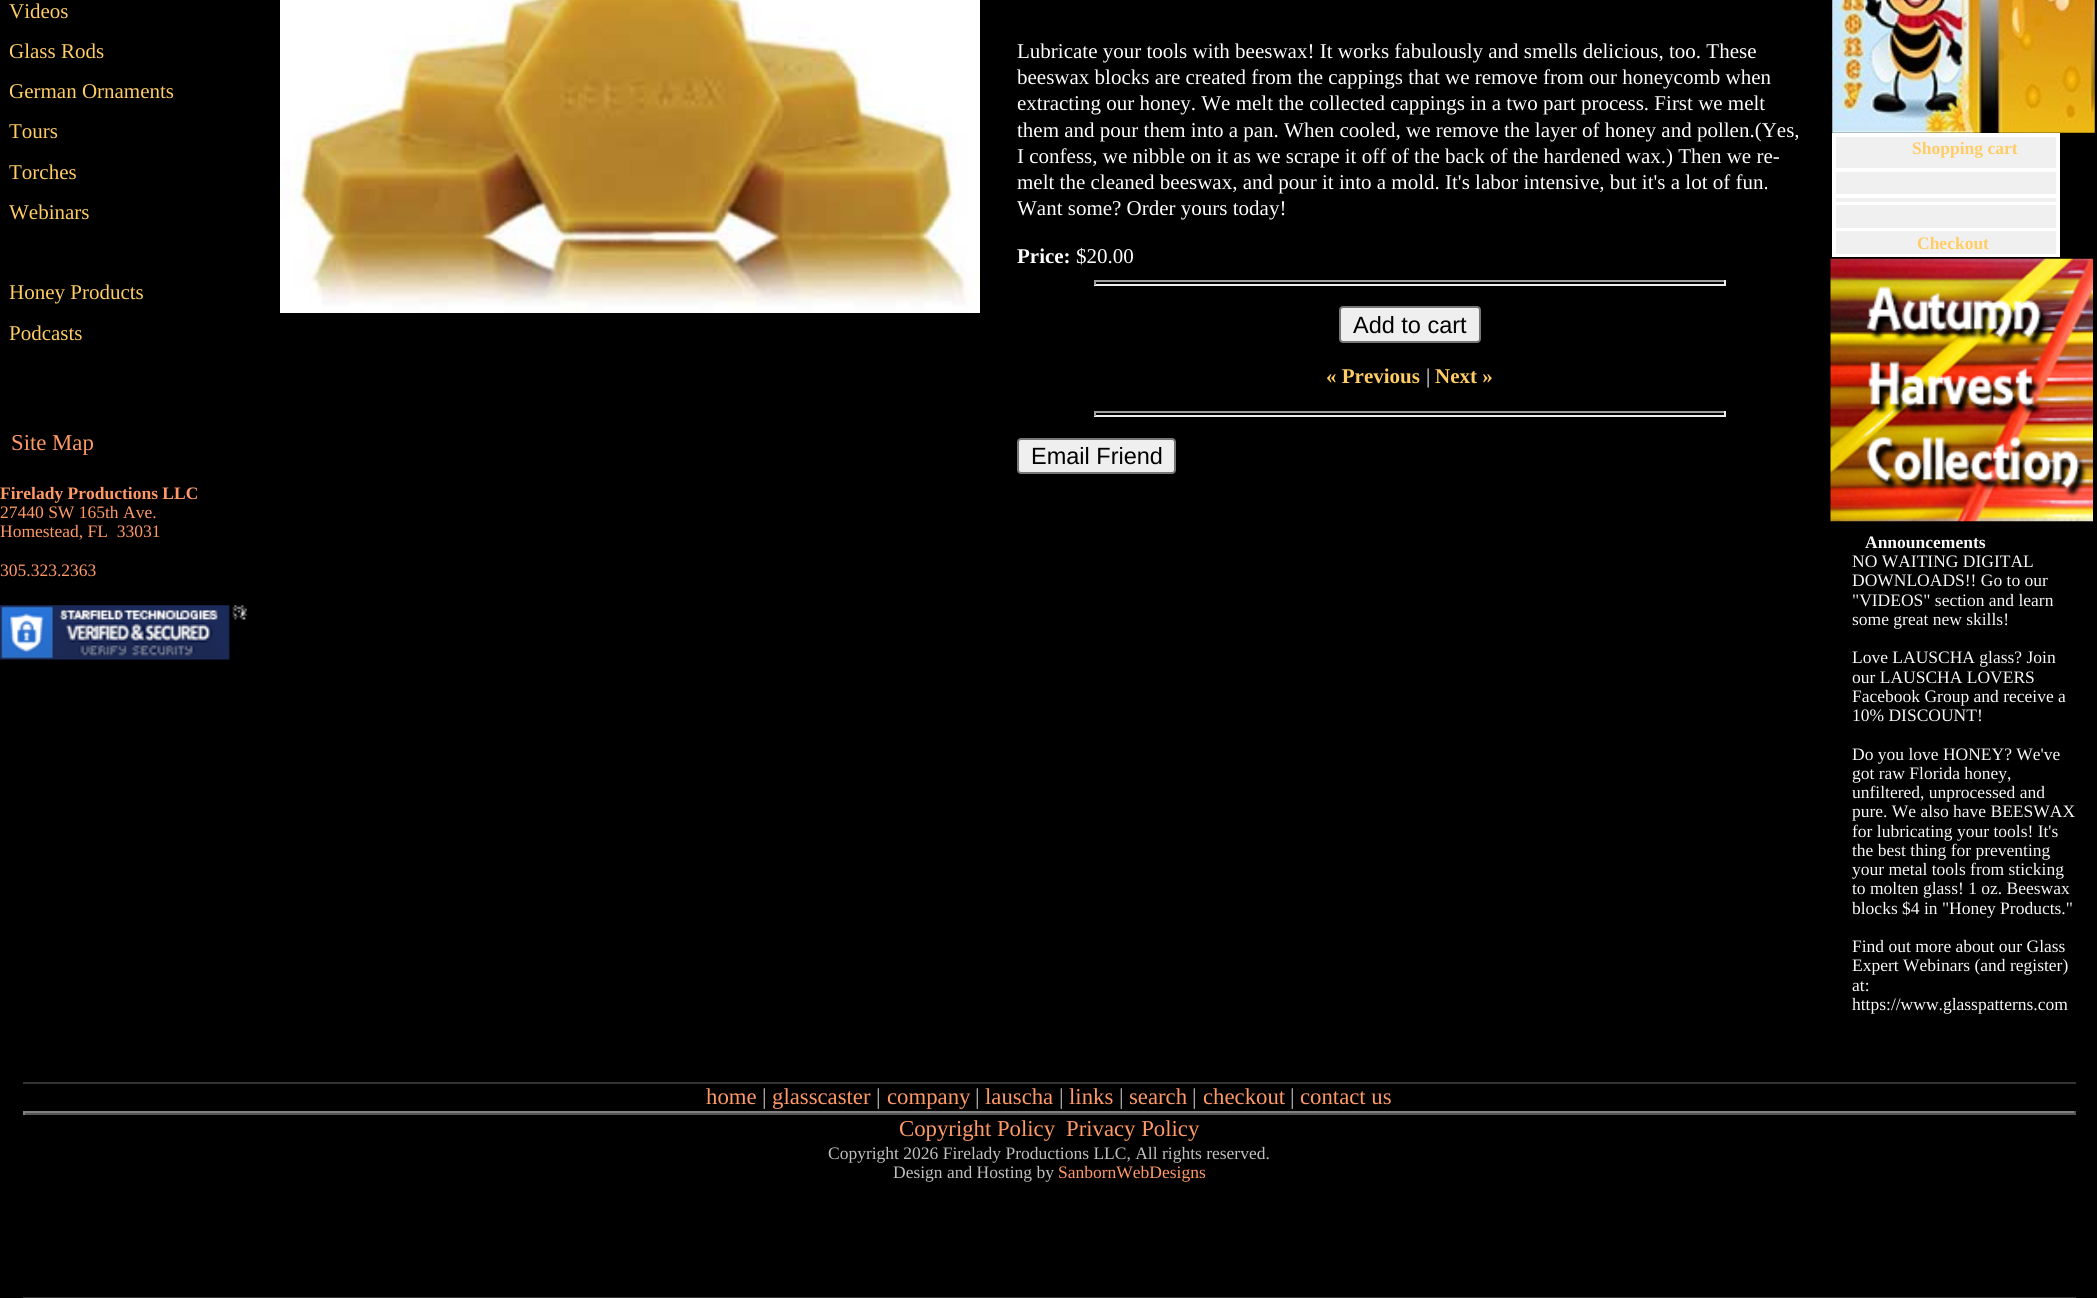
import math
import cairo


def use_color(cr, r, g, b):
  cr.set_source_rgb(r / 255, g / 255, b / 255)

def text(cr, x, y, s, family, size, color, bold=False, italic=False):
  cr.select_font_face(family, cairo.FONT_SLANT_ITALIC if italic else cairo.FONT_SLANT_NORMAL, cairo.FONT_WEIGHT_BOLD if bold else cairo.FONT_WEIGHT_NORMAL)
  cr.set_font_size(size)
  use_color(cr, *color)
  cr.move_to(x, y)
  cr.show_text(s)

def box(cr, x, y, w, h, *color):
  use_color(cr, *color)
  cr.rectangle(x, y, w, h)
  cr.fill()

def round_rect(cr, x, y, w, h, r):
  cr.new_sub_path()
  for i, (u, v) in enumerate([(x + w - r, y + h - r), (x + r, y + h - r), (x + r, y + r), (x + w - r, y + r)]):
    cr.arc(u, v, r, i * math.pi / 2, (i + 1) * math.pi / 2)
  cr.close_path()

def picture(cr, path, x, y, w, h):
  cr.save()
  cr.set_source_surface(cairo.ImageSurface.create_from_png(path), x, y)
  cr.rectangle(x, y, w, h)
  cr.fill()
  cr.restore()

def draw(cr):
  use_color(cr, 0, 0, 0)
  cr.paint()
  picture(cr, "img_01.png", 0, 605, 247, 55)
  picture(cr, "img_02.png", 280, 0, 700, 313)
  box(cr, 1094, 280, 632, 2, 159, 159, 159)
  box(cr, 1724, 280, 2, 5, 238, 238, 238)
  box(cr, 1094, 284, 632, 2, 238, 238, 238)
  box(cr, 1094, 280, 2, 5, 159, 159, 159)
  use_color(cr, 239, 239, 239)
  round_rect(cr, 1340, 307, 140, 35, 3)
  cr.fill_preserve()
  use_color(cr, 118, 118, 118)
  cr.stroke()
  box(cr, 1094, 411, 632, 2, 159, 159, 159)
  box(cr, 1724, 411, 2, 5, 238, 238, 238)
  box(cr, 1094, 415, 632, 2, 238, 238, 238)
  box(cr, 1094, 411, 2, 5, 159, 159, 159)
  use_color(cr, 239, 239, 239)
  round_rect(cr, 1018, 439, 157, 34, 3)
  cr.fill_preserve()
  use_color(cr, 118, 118, 118)
  cr.stroke()
  picture(cr, "img_03.png", 1832, 0, 263, 133)
  box(cr, 1832, 133, 228, 124, 255, 255, 255)
  box(cr, 1836, 137, 220, 31, 240, 240, 240)
  box(cr, 1836, 172, 220, 22, 240, 240, 240)
  box(cr, 1836, 198, 220, 4, 240, 240, 240)
  box(cr, 1836, 205, 220, 23, 240, 240, 240)
  box(cr, 1836, 231, 220, 23, 240, 240, 240)
  picture(cr, "img_04.png", 1830, 258, 263, 264)
  box(cr, 23, 1082, 2053, 2, 51, 51, 51)
  box(cr, 23, 1111, 2053, 2, 128, 128, 128)
  box(cr, 2074, 1111, 2, 4, 85, 85, 85)
  box(cr, 23, 1113, 2053, 2, 85, 85, 85)
  box(cr, 23, 1111, 2, 4, 128, 128, 128)
  box(cr, 23, 1297, 2053, 1, 51, 51, 51)
  text(cr, 9, 18, "Videos", "Liberation Serif", 21, (255, 204, 102))
  text(cr, 9, 58, "Glass Rods", "Liberation Serif", 21, (255, 204, 102))
  text(cr, 9, 98, "German Ornaments", "Liberation Serif", 21, (255, 204, 102))
  text(cr, 9, 138, "Tours", "Liberation Serif", 21, (255, 204, 102))
  text(cr, 9, 179, "Torches", "Liberation Serif", 21, (255, 204, 102))
  text(cr, 9, 219, "Webinars", "Liberation Serif", 21, (255, 204, 102))
  text(cr, 9, 299, "Honey Products", "Liberation Serif", 21, (255, 204, 102))
  text(cr, 9, 340, "Podcasts", "Liberation Serif", 21, (255, 204, 102))
  text(cr, 11, 450, "Site Map", "Liberation Serif", 22.75, (255, 153, 102))
  text(cr, 0, 499, "Firelady Productions LLC", "Liberation Serif", 17.5, (255, 153, 102), bold=True)
  text(cr, 0, 518, "27440 SW 165th Ave.", "Liberation Serif", 17.5, (255, 153, 102))
  text(cr, 0, 537, "Homestead, FL  33031", "Liberation Serif", 17.5, (255, 153, 102))
  text(cr, 0, 576, "305.323.2363", "Liberation Serif", 17.5, (255, 153, 102))
  text(cr, 1017, 58, "Lubricate your tools with beeswax! It works fabulously and smells delicious, too. These", "Liberation Serif", 21, (255, 255, 255))
  text(cr, 1017, 84, "beeswax blocks are created from the cappings that we remove from our honeycomb when", "Liberation Serif", 21, (255, 255, 255))
  text(cr, 1017, 110, "extracting our honey. We melt the collected cappings in a two part process. First we melt", "Liberation Serif", 21, (255, 255, 255))
  text(cr, 1017, 137, "them and pour them into a pan. When cooled, we remove the layer of honey and pollen.(Yes,", "Liberation Serif", 21, (255, 255, 255))
  text(cr, 1017, 163, "I confess, we nibble on it as we scrape it off of the back of the hardened wax.) Then we re-", "Liberation Serif", 21, (255, 255, 255))
  text(cr, 1017, 189, "melt the cleaned beeswax, and pour it into a mold. It's labor intensive, but it's a lot of fun.", "Liberation Serif", 21, (255, 255, 255))
  text(cr, 1017, 215, "Want some? Order yours today!", "Liberation Serif", 21, (255, 255, 255))
  text(cr, 1017, 263, "Price:", "Liberation Serif", 21, (255, 255, 255), bold=True)
  text(cr, 1076, 263, "$20.00", "Liberation Serif", 21, (255, 255, 255))
  text(cr, 1353, 333, "Add to cart", "Liberation Sans", 23.5, (0, 0, 0))
  text(cr, 1326, 383, "« Previous", "Liberation Serif", 21, (255, 204, 102), bold=True)
  text(cr, 1426, 383, "|", "Liberation Serif", 21, (255, 255, 255))
  text(cr, 1435, 383, "Next »", "Liberation Serif", 21, (255, 204, 102), bold=True)
  text(cr, 1031, 464, "Email Friend", "Liberation Sans", 23.5, (0, 0, 0))
  text(cr, 1912, 154, "Shopping cart", "Liberation Serif", 17.5, (255, 204, 102), bold=True)
  text(cr, 1917, 249, "Checkout", "Liberation Serif", 17.5, (255, 204, 102), bold=True)
  text(cr, 1865, 548, "Announcements", "Liberation Serif", 17.5, (248, 248, 248), bold=True)
  text(cr, 1852, 567, "NO WAITING DIGITAL", "Liberation Serif", 17.5, (248, 248, 248))
  text(cr, 1852, 586, "DOWNLOADS!! Go to our", "Liberation Serif", 17.5, (248, 248, 248))
  text(cr, 1852, 606, "\"VIDEOS\" section and learn", "Liberation Serif", 17.5, (248, 248, 248))
  text(cr, 1852, 625, "some great new skills!", "Liberation Serif", 17.5, (248, 248, 248))
  text(cr, 1852, 663, "Love LAUSCHA glass? Join", "Liberation Serif", 17.5, (248, 248, 248))
  text(cr, 1852, 683, "our LAUSCHA LOVERS", "Liberation Serif", 17.5, (248, 248, 248))
  text(cr, 1852, 702, "Facebook Group and receive a", "Liberation Serif", 17.5, (248, 248, 248))
  text(cr, 1852, 721, "10% DISCOUNT!", "Liberation Serif", 17.5, (248, 248, 248))
  text(cr, 1852, 760, "Do you love HONEY? We've", "Liberation Serif", 17.5, (248, 248, 248))
  text(cr, 1852, 779, "got raw Florida honey,", "Liberation Serif", 17.5, (248, 248, 248))
  text(cr, 1852, 798, "unfiltered, unprocessed and", "Liberation Serif", 17.5, (248, 248, 248))
  text(cr, 1852, 817, "pure. We also have BEESWAX", "Liberation Serif", 17.5, (248, 248, 248))
  text(cr, 1852, 837, "for lubricating your tools! It's", "Liberation Serif", 17.5, (248, 248, 248))
  text(cr, 1852, 856, "the best thing for preventing", "Liberation Serif", 17.5, (248, 248, 248))
  text(cr, 1852, 875, "your metal tools from sticking", "Liberation Serif", 17.5, (248, 248, 248))
  text(cr, 1852, 894, "to molten glass! 1 oz. Beeswax", "Liberation Serif", 17.5, (248, 248, 248))
  text(cr, 1852, 914, "blocks $4 in \"Honey Products.\"", "Liberation Serif", 17.5, (248, 248, 248))
  text(cr, 1852, 952, "Find out more about our Glass", "Liberation Serif", 17.5, (248, 248, 248))
  text(cr, 1852, 971, "Expert Webinars (and register)", "Liberation Serif", 17.5, (248, 248, 248))
  text(cr, 1852, 991, "at:", "Liberation Serif", 17.5, (248, 248, 248))
  text(cr, 1852, 1010, "https://www.glasspatterns.com", "Liberation Serif", 17.5, (248, 248, 248))
  text(cr, 706, 1104, "home", "Liberation Serif", 22.75, (255, 153, 102))
  text(cr, 762, 1104, "|", "Liberation Serif", 22.75, (192, 192, 192))
  text(cr, 772, 1104, "glasscaster", "Liberation Serif", 22.75, (255, 153, 102))
  text(cr, 876, 1104, "|", "Liberation Serif", 22.75, (192, 192, 192))
  text(cr, 887, 1104, "company", "Liberation Serif", 22.75, (255, 153, 102))
  text(cr, 975, 1104, "|", "Liberation Serif", 22.75, (192, 192, 192))
  text(cr, 985, 1104, "lauscha", "Liberation Serif", 22.75, (255, 153, 102))
  text(cr, 1059, 1104, "|", "Liberation Serif", 22.75, (192, 192, 192))
  text(cr, 1069, 1104, "links", "Liberation Serif", 22.75, (255, 153, 102))
  text(cr, 1119, 1104, "|", "Liberation Serif", 22.75, (192, 192, 192))
  text(cr, 1129, 1104, "search", "Liberation Serif", 22.75, (255, 153, 102))
  text(cr, 1192, 1104, "|", "Liberation Serif", 22.75, (192, 192, 192))
  text(cr, 1203, 1104, "checkout", "Liberation Serif", 22.75, (255, 153, 102))
  text(cr, 1290, 1104, "|", "Liberation Serif", 22.75, (192, 192, 192))
  text(cr, 1300, 1104, "contact us", "Liberation Serif", 22.75, (255, 153, 102))
  text(cr, 899, 1136, "Copyright Policy", "Liberation Serif", 22.75, (255, 153, 102))
  text(cr, 1066, 1136, "Privacy Policy", "Liberation Serif", 22.75, (255, 153, 102))
  text(cr, 828, 1159, "Copyright 2026 Firelady Productions LLC, All rights reserved.", "Liberation Serif", 17.5, (192, 192, 192))
  text(cr, 893, 1178, "Design and Hosting by", "Liberation Serif", 17.5, (192, 192, 192))
  text(cr, 1058, 1178, "SanbornWebDesigns", "Liberation Serif", 17.5, (255, 153, 102))


surface = cairo.ImageSurface(cairo.FORMAT_RGB24, 2097, 1298)
cr = cairo.Context(surface)
options = cairo.FontOptions()
options.set_hint_metrics(cairo.HINT_METRICS_OFF)
options.set_hint_style(cairo.HINT_STYLE_NONE)
cr.set_font_options(options)
cr.set_miter_limit(4)
draw(cr)
surface.write_to_png("out.png")
